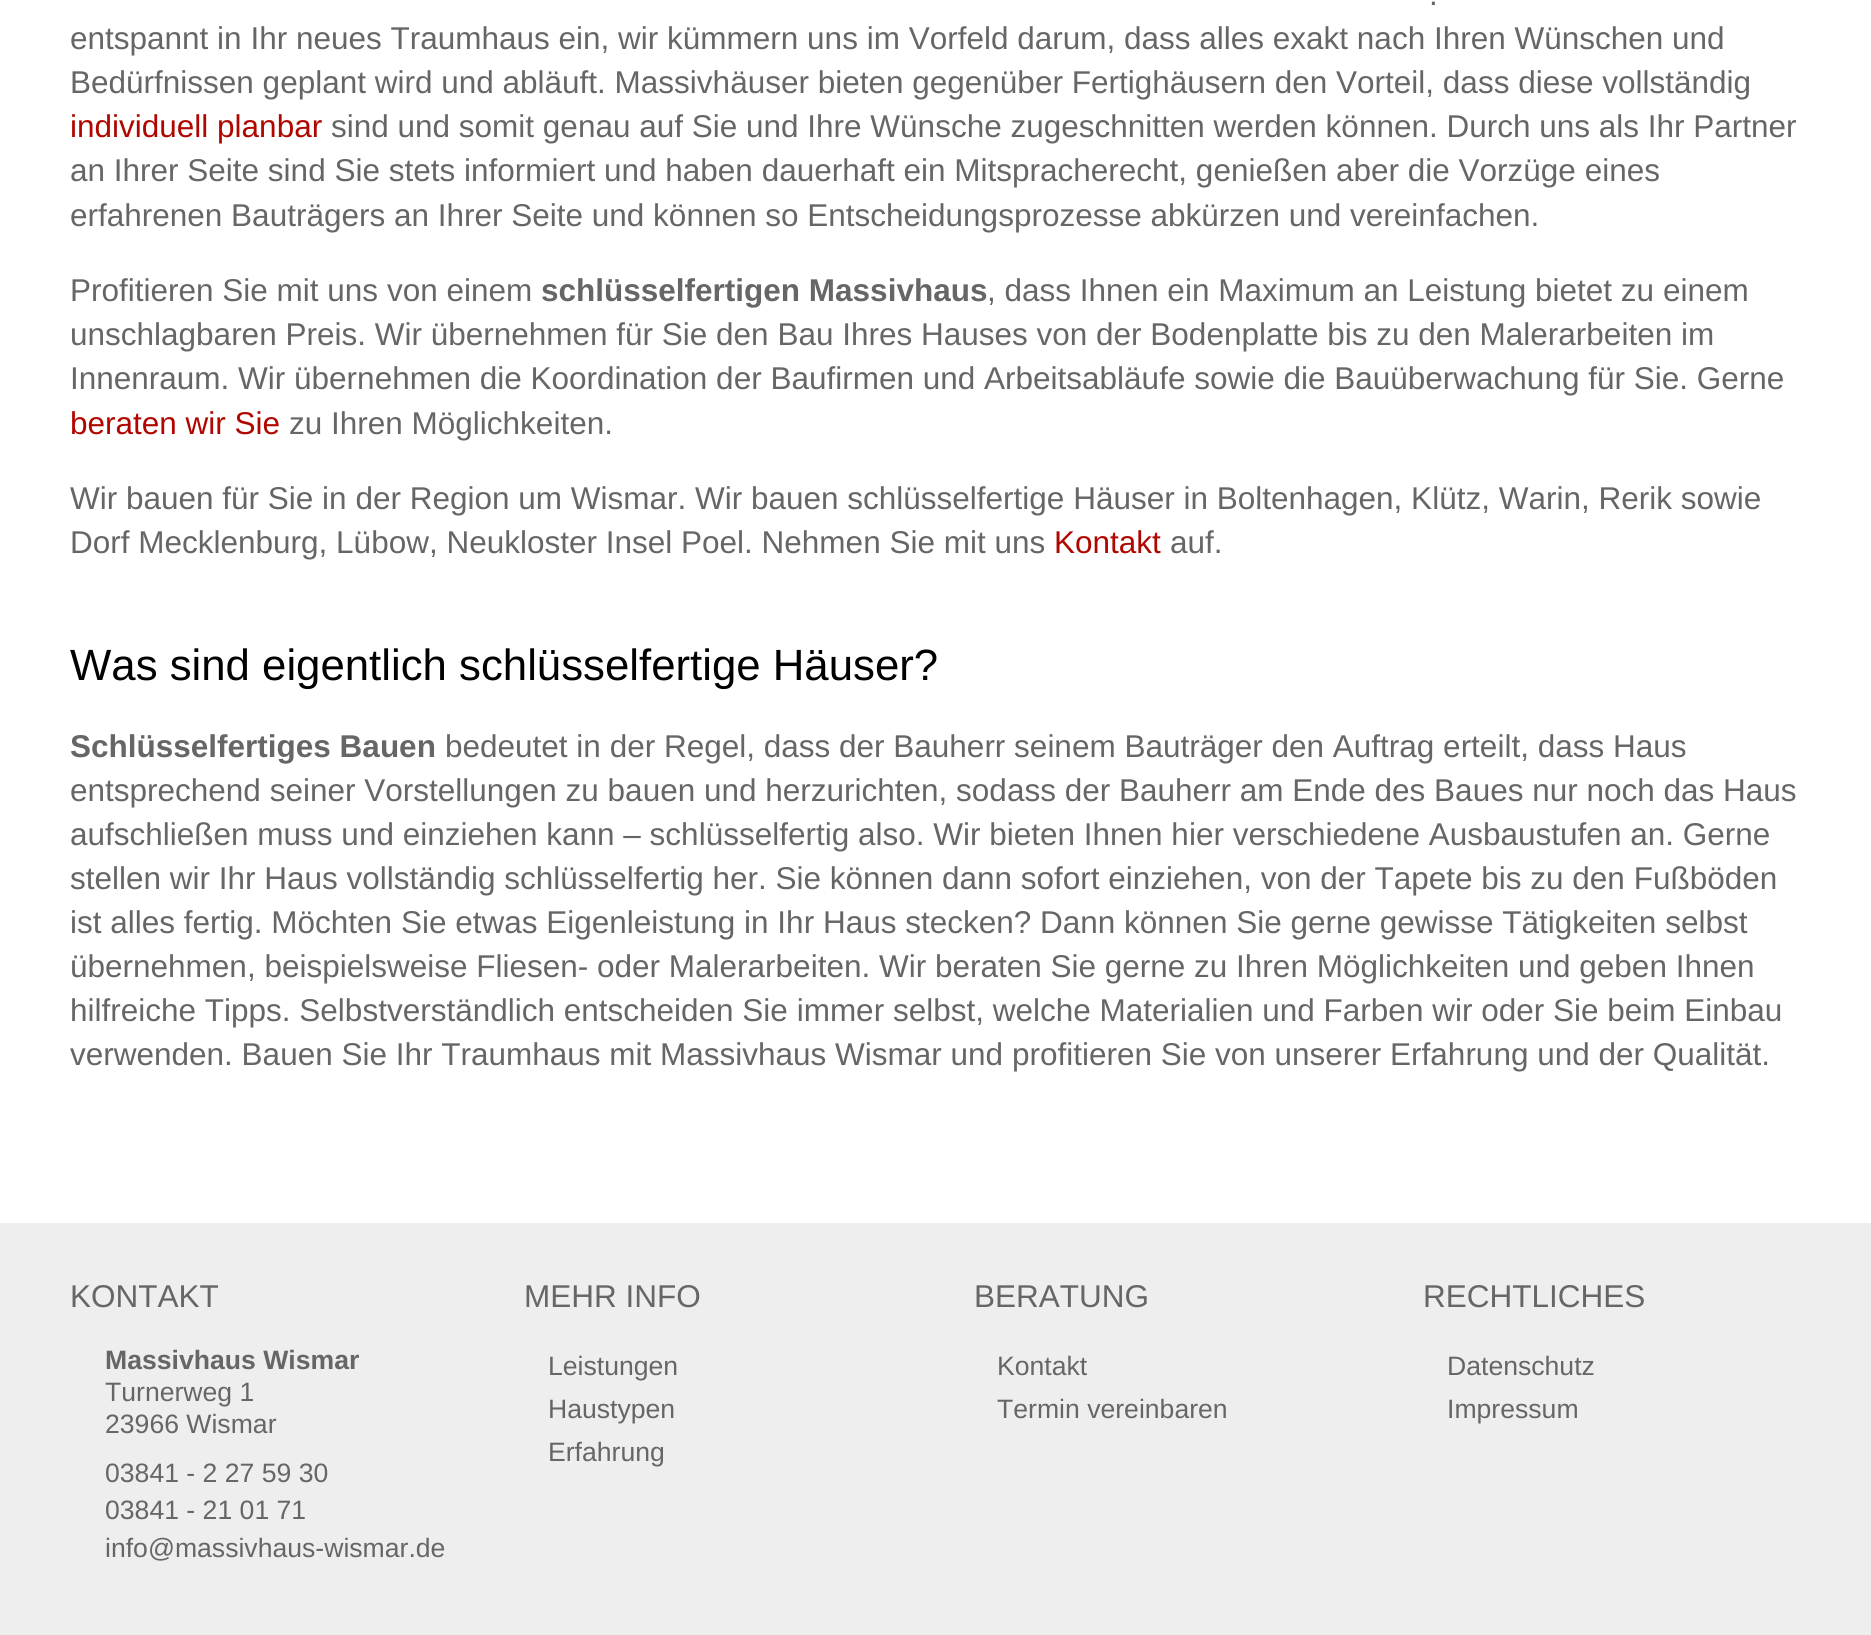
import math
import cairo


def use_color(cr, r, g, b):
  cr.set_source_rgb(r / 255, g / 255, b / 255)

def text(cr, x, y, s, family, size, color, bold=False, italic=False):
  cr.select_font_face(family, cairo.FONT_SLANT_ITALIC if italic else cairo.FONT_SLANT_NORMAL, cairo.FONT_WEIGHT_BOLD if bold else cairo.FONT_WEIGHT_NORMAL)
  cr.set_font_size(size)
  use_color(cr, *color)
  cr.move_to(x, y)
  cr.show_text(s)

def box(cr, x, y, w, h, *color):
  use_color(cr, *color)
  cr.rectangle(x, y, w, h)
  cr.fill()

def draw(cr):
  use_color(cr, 255, 255, 255)
  cr.paint()
  box(cr, 0, 1223, 1871, 412, 238, 238, 238)
  text(cr, 1429, 5, ".", "Liberation Sans", 31.5, (102, 102, 102))
  text(cr, 70, 49, "entspannt in Ihr neues Traumhaus ein, wir kümmern uns im Vorfeld darum, dass alles exakt nach Ihren Wünschen und", "Liberation Sans", 31.5, (102, 102, 102))
  text(cr, 70, 93, "Bedürfnissen geplant wird und abläuft. Massivhäuser bieten gegenüber Fertighäusern den Vorteil, dass diese vollständig", "Liberation Sans", 31.5, (102, 102, 102))
  text(cr, 70, 137, "individuell planbar", "Liberation Sans", 31.5, (175, 7, 0))
  text(cr, 331, 137, "sind und somit genau auf Sie und Ihre Wünsche zugeschnitten werden können. Durch uns als Ihr Partner", "Liberation Sans", 31.5, (102, 102, 102))
  text(cr, 70, 181, "an Ihrer Seite sind Sie stets informiert und haben dauerhaft ein Mitspracherecht, genießen aber die Vorzüge eines", "Liberation Sans", 31.5, (102, 102, 102))
  text(cr, 70, 226, "erfahrenen Bauträgers an Ihrer Seite und können so Entscheidungsprozesse abkürzen und vereinfachen.", "Liberation Sans", 31.5, (102, 102, 102))
  text(cr, 70, 301, "Profitieren Sie mit uns von einem", "Liberation Sans", 31.5, (102, 102, 102))
  text(cr, 541, 301, "schlüsselfertigen Massivhaus", "Liberation Sans", 31.5, (102, 102, 102), bold=True)
  text(cr, 987, 301, ", dass Ihnen ein Maximum an Leistung bietet zu einem", "Liberation Sans", 31.5, (102, 102, 102))
  text(cr, 70, 345, "unschlagbaren Preis. Wir übernehmen für Sie den Bau Ihres Hauses von der Bodenplatte bis zu den Malerarbeiten im", "Liberation Sans", 31.5, (102, 102, 102))
  text(cr, 70, 389, "Innenraum. Wir übernehmen die Koordination der Baufirmen und Arbeitsabläufe sowie die Bauüberwachung für Sie. Gerne", "Liberation Sans", 31.5, (102, 102, 102))
  text(cr, 70, 434, "beraten wir Sie", "Liberation Sans", 31.5, (175, 7, 0))
  text(cr, 289, 434, "zu Ihren Möglichkeiten.", "Liberation Sans", 31.5, (102, 102, 102))
  text(cr, 70, 509, "Wir bauen für Sie in der Region um Wismar. Wir bauen schlüsselfertige Häuser in Boltenhagen, Klütz, Warin, Rerik sowie", "Liberation Sans", 31.5, (102, 102, 102))
  text(cr, 70, 553, "Dorf Mecklenburg, Lübow, Neukloster Insel Poel. Nehmen Sie mit uns", "Liberation Sans", 31.5, (102, 102, 102))
  text(cr, 1054, 553, "Kontakt", "Liberation Sans", 31.5, (175, 7, 0))
  text(cr, 1170, 553, "auf.", "Liberation Sans", 31.5, (102, 102, 102))
  text(cr, 70, 680, "Was sind eigentlich schlüsselfertige Häuser?", "Liberation Sans", 43.75, (0, 0, 0))
  text(cr, 70, 757, "Schlüsselfertiges Bauen", "Liberation Sans", 31.5, (102, 102, 102), bold=True)
  text(cr, 445, 757, "bedeutet in der Regel, dass der Bauherr seinem Bauträger den Auftrag erteilt, dass Haus", "Liberation Sans", 31.5, (102, 102, 102))
  text(cr, 70, 801, "entsprechend seiner Vorstellungen zu bauen und herzurichten, sodass der Bauherr am Ende des Baues nur noch das Haus", "Liberation Sans", 31.5, (102, 102, 102))
  text(cr, 70, 845, "aufschließen muss und einziehen kann – schlüsselfertig also. Wir bieten Ihnen hier verschiedene Ausbaustufen an. Gerne", "Liberation Sans", 31.5, (102, 102, 102))
  text(cr, 70, 889, "stellen wir Ihr Haus vollständig schlüsselfertig her. Sie können dann sofort einziehen, von der Tapete bis zu den Fußböden", "Liberation Sans", 31.5, (102, 102, 102))
  text(cr, 70, 933, "ist alles fertig. Möchten Sie etwas Eigenleistung in Ihr Haus stecken? Dann können Sie gerne gewisse Tätigkeiten selbst", "Liberation Sans", 31.5, (102, 102, 102))
  text(cr, 70, 977, "übernehmen, beispielsweise Fliesen- oder Malerarbeiten. Wir beraten Sie gerne zu Ihren Möglichkeiten und geben Ihnen", "Liberation Sans", 31.5, (102, 102, 102))
  text(cr, 70, 1021, "hilfreiche Tipps. Selbstverständlich entscheiden Sie immer selbst, welche Materialien und Farben wir oder Sie beim Einbau", "Liberation Sans", 31.5, (102, 102, 102))
  text(cr, 70, 1065, "verwenden. Bauen Sie Ihr Traumhaus mit Massivhaus Wismar und profitieren Sie von unserer Erfahrung und der Qualität.", "Liberation Sans", 31.5, (102, 102, 102))
  text(cr, 70, 1307, "KONTAKT", "Liberation Sans", 31.5, (102, 102, 102))
  text(cr, 105, 1369, "Massivhaus Wismar", "Liberation Sans", 26.6, (102, 102, 102), bold=True)
  text(cr, 105, 1401, "Turnerweg 1", "Liberation Sans", 26.6, (102, 102, 102))
  text(cr, 105, 1433, "23966 Wismar", "Liberation Sans", 26.6, (102, 102, 102))
  text(cr, 105, 1482, "03841 - 2 27 59 30", "Liberation Sans", 26.6, (102, 102, 102))
  text(cr, 105, 1519, "03841 - 21 01 71", "Liberation Sans", 26.6, (102, 102, 102))
  text(cr, 105, 1557, "info@massivhaus-wismar.de", "Liberation Sans", 26.6, (102, 102, 102))
  text(cr, 524, 1307, "MEHR INFO", "Liberation Sans", 31.5, (102, 102, 102))
  text(cr, 548, 1375, "Leistungen", "Liberation Sans", 26.6, (102, 102, 102))
  text(cr, 548, 1418, "Haustypen", "Liberation Sans", 26.6, (102, 102, 102))
  text(cr, 548, 1461, "Erfahrung", "Liberation Sans", 26.6, (102, 102, 102))
  text(cr, 974, 1307, "BERATUNG", "Liberation Sans", 31.5, (102, 102, 102))
  text(cr, 997, 1375, "Kontakt", "Liberation Sans", 26.6, (102, 102, 102))
  text(cr, 997, 1418, "Termin vereinbaren", "Liberation Sans", 26.6, (102, 102, 102))
  text(cr, 1423, 1307, "RECHTLICHES", "Liberation Sans", 31.5, (102, 102, 102))
  text(cr, 1447, 1375, "Datenschutz", "Liberation Sans", 26.6, (102, 102, 102))
  text(cr, 1447, 1418, "Impressum", "Liberation Sans", 26.6, (102, 102, 102))


surface = cairo.ImageSurface(cairo.FORMAT_RGB24, 1871, 1635)
cr = cairo.Context(surface)
options = cairo.FontOptions()
options.set_hint_metrics(cairo.HINT_METRICS_OFF)
options.set_hint_style(cairo.HINT_STYLE_NONE)
cr.set_font_options(options)
cr.set_miter_limit(4)
draw(cr)
surface.write_to_png("out.png")
